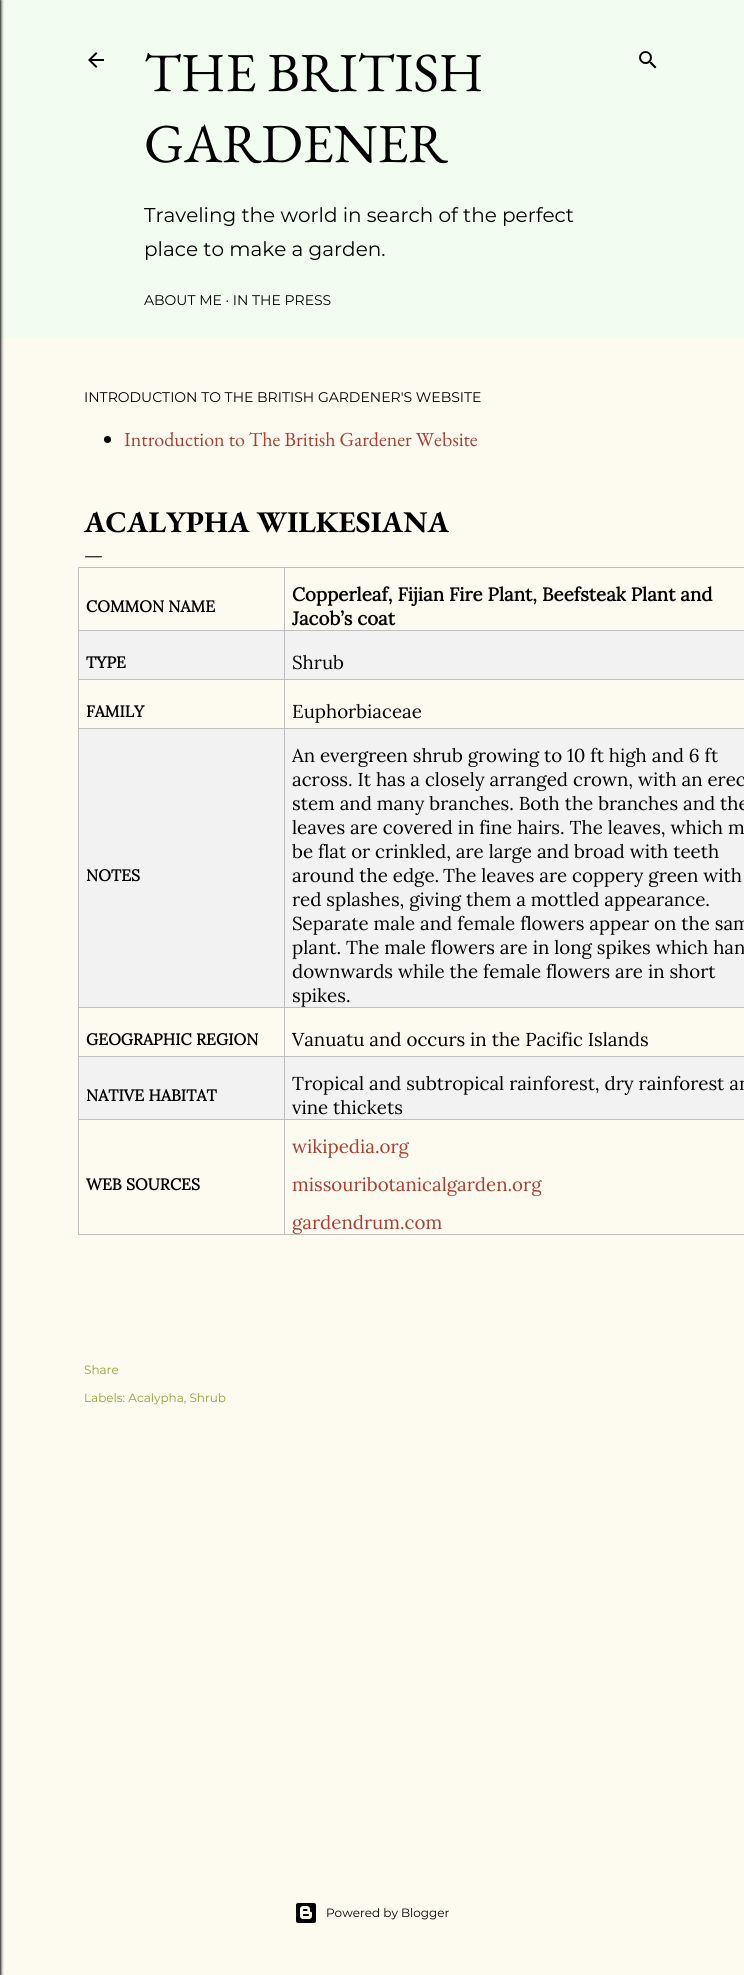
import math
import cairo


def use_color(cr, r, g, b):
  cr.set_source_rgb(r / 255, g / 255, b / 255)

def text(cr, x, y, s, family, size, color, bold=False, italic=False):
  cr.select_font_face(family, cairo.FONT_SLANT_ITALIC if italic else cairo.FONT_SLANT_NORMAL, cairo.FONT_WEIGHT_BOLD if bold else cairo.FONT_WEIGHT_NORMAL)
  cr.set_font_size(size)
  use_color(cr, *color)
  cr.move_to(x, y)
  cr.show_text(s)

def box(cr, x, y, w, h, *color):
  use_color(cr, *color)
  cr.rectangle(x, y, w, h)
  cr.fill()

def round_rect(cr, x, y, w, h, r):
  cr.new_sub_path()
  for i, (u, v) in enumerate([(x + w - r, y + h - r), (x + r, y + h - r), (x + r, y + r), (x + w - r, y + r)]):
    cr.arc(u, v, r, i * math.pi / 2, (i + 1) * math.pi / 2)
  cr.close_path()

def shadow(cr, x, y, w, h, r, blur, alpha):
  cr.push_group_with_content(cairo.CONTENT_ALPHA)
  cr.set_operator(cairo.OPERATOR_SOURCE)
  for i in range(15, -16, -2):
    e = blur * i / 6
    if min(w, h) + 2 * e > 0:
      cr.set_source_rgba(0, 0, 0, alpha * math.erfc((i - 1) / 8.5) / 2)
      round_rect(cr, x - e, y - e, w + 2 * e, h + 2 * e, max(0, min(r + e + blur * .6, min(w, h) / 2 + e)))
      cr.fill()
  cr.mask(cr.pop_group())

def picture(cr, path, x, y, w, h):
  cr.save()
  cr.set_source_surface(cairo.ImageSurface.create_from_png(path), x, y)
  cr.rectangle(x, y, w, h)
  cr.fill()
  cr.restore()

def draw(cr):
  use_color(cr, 253, 250, 240)
  cr.paint()
  box(cr, 0, 0, 744, 338, 241, 253, 239)
  use_color(cr, 0, 0, 0)
  shadow(cr, -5, 0, 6, 1975, 0, 1.5, 1)
  picture(cr, "img_01.png", 88, 52, 16, 16)
  picture(cr, "img_02.png", 639, 51, 18, 18)
  use_color(cr, 0, 0, 0)
  cr.arc(107.5, 439.5, 3.5, 0, 2 * math.pi)
  cr.fill()
  box(cr, 284, 567, 460, 1, 191, 191, 191)
  box(cr, 78, 630, 207, 1, 191, 191, 191)
  box(cr, 78, 679, 207, 1, 191, 191, 191)
  box(cr, 78, 728, 207, 1, 191, 191, 191)
  box(cr, 78, 1007, 207, 1, 191, 191, 191)
  box(cr, 78, 1056, 207, 1, 191, 191, 191)
  box(cr, 78, 1119, 207, 1, 191, 191, 191)
  box(cr, 284, 1234, 460, 1, 191, 191, 191)
  box(cr, 284, 1119, 1, 116, 191, 191, 191)
  box(cr, 284, 1119, 460, 1, 191, 191, 191)
  box(cr, 284, 1056, 1, 64, 191, 191, 191)
  box(cr, 284, 1056, 460, 1, 191, 191, 191)
  box(cr, 284, 1007, 1, 50, 191, 191, 191)
  box(cr, 284, 1007, 460, 1, 191, 191, 191)
  box(cr, 284, 728, 1, 280, 191, 191, 191)
  box(cr, 284, 728, 460, 1, 191, 191, 191)
  box(cr, 284, 679, 1, 50, 191, 191, 191)
  box(cr, 284, 679, 460, 1, 191, 191, 191)
  box(cr, 284, 630, 1, 50, 191, 191, 191)
  box(cr, 284, 630, 460, 1, 191, 191, 191)
  box(cr, 284, 567, 1, 64, 191, 191, 191)
  box(cr, 78, 567, 207, 1, 191, 191, 191)
  box(cr, 78, 1234, 207, 1, 191, 191, 191)
  box(cr, 78, 1119, 1, 116, 191, 191, 191)
  box(cr, 78, 1056, 1, 64, 191, 191, 191)
  box(cr, 78, 1007, 1, 50, 191, 191, 191)
  box(cr, 78, 728, 1, 280, 191, 191, 191)
  box(cr, 78, 679, 1, 50, 191, 191, 191)
  box(cr, 78, 630, 1, 50, 191, 191, 191)
  box(cr, 78, 567, 1, 64, 191, 191, 191)
  box(cr, 79, 631, 205, 48, 242, 242, 242)
  box(cr, 285, 631, 459, 48, 242, 242, 242)
  box(cr, 79, 729, 205, 278, 242, 242, 242)
  box(cr, 285, 729, 459, 278, 242, 242, 242)
  box(cr, 79, 1057, 205, 62, 242, 242, 242)
  box(cr, 285, 1057, 459, 62, 242, 242, 242)
  picture(cr, "img_03.png", 296, 1903, 20, 20)
  text(cr, 144, 91, "THE BRITISH", "EB Garamond", 55, (0, 0, 0))
  text(cr, 144, 162, "GARDENER", "EB Garamond", 55, (0, 0, 0))
  text(cr, 144, 222, "Traveling the world in search of the perfect", "Montserrat", 20, (0, 0, 0))
  text(cr, 144, 256, "place to make a garden.", "Montserrat", 20, (0, 0, 0))
  text(cr, 144, 305, "ABOUT ME · IN THE PRESS", "Montserrat", 14, (0, 0, 0))
  text(cr, 84, 402, "INTRODUCTION TO THE BRITISH GARDENER'S WEBSITE", "Montserrat", 14, (0, 0, 0))
  text(cr, 124, 446, "Introduction to The British Gardener Website", "EB Garamond", 20, (169, 62, 51))
  text(cr, 84, 532, "ACALYPHA WILKESIANA", "EB Garamond", 30, (0, 0, 0), bold=True)
  text(cr, 84, 561, "—", "EB Garamond", 20, (0, 0, 0))
  text(cr, 86, 612, "COMMON NAME", "Lora", 16, (0, 0, 0), bold=True)
  text(cr, 292, 601, "Copperleaf, Fijian Fire Plant, Beefsteak Plant and", "Lora", 18.7, (0, 0, 0), bold=True)
  text(cr, 292, 625, "Jacob’s coat", "Lora", 18.7, (0, 0, 0), bold=True)
  text(cr, 86, 668, "TYPE", "Lora", 16, (0, 0, 0), bold=True)
  text(cr, 292, 669, "Shrub", "Lora", 18.7, (0, 0, 0))
  text(cr, 86, 717, "FAMILY", "Lora", 16, (0, 0, 0), bold=True)
  text(cr, 292, 718, "Euphorbiaceae", "Lora", 18.7, (0, 0, 0))
  text(cr, 86, 881, "NOTES", "Lora", 16, (0, 0, 0), bold=True)
  text(cr, 292, 762, "An evergreen shrub growing to 10 ft high and 6 ft", "Lora", 18.7, (0, 0, 0))
  text(cr, 292, 786, "across. It has a closely arranged crown, with an erec", "Lora", 18.7, (0, 0, 0))
  text(cr, 292, 810, "stem and many branches. Both the branches and the", "Lora", 18.7, (0, 0, 0))
  text(cr, 292, 834, "leaves are covered in fine hairs. The leaves, which m", "Lora", 18.7, (0, 0, 0))
  text(cr, 292, 858, "be flat or crinkled, are large and broad with teeth", "Lora", 18.7, (0, 0, 0))
  text(cr, 292, 882, "around the edge.", "Lora", 18.7, (0, 0, 0))
  text(cr, 443, 882, "The leaves are coppery green with", "Lora", 18.7, (0, 0, 0))
  text(cr, 292, 906, "red splashes, giving them a mottled appearance.", "Lora", 18.7, (0, 0, 0))
  text(cr, 292, 930, "Separate male and female flowers appear on the sam", "Lora", 18.7, (0, 0, 0))
  text(cr, 292, 954, "plant. The male flowers are in long spikes which han", "Lora", 18.7, (0, 0, 0))
  text(cr, 292, 978, "downwards while the female flowers are in short", "Lora", 18.7, (0, 0, 0))
  text(cr, 292, 1002, "spikes.", "Lora", 18.7, (0, 0, 0))
  text(cr, 86, 1045, "GEOGRAPHIC REGION", "Lora", 16, (0, 0, 0), bold=True)
  text(cr, 292, 1046, "Vanuatu and occurs in the Pacific Islands", "Lora", 18.7, (0, 0, 0))
  text(cr, 86, 1101, "NATIVE HABITAT", "Lora", 16, (0, 0, 0), bold=True)
  text(cr, 292, 1090, "Tropical and subtropical rainforest, dry rainforest an", "Lora", 18.7, (0, 0, 0))
  text(cr, 292, 1114, "vine thickets", "Lora", 18.7, (0, 0, 0))
  text(cr, 86, 1190, "WEB SOURCES", "Lora", 16, (0, 0, 0), bold=True)
  text(cr, 292, 1153, "wikipedia.org", "Lora", 18.7, (169, 62, 51))
  text(cr, 292, 1191, "missouribotanicalgarden.org", "Lora", 18.7, (169, 62, 51))
  text(cr, 292, 1229, "gardendrum.com", "Lora", 18.7, (169, 62, 51))
  text(cr, 84, 1374, "Share", "Montserrat", 12, (141, 163, 49))
  text(cr, 84, 1402, "Labels: Acalypha, Shrub", "Montserrat", 12, (141, 163, 49))
  text(cr, 326, 1917, "Powered by Blogger", "Montserrat", 12, (0, 0, 0))


surface = cairo.ImageSurface(cairo.FORMAT_RGB24, 744, 1975)
cr = cairo.Context(surface)
options = cairo.FontOptions()
options.set_hint_metrics(cairo.HINT_METRICS_OFF)
options.set_hint_style(cairo.HINT_STYLE_NONE)
cr.set_font_options(options)
cr.set_miter_limit(4)
draw(cr)
surface.write_to_png("out.png")
